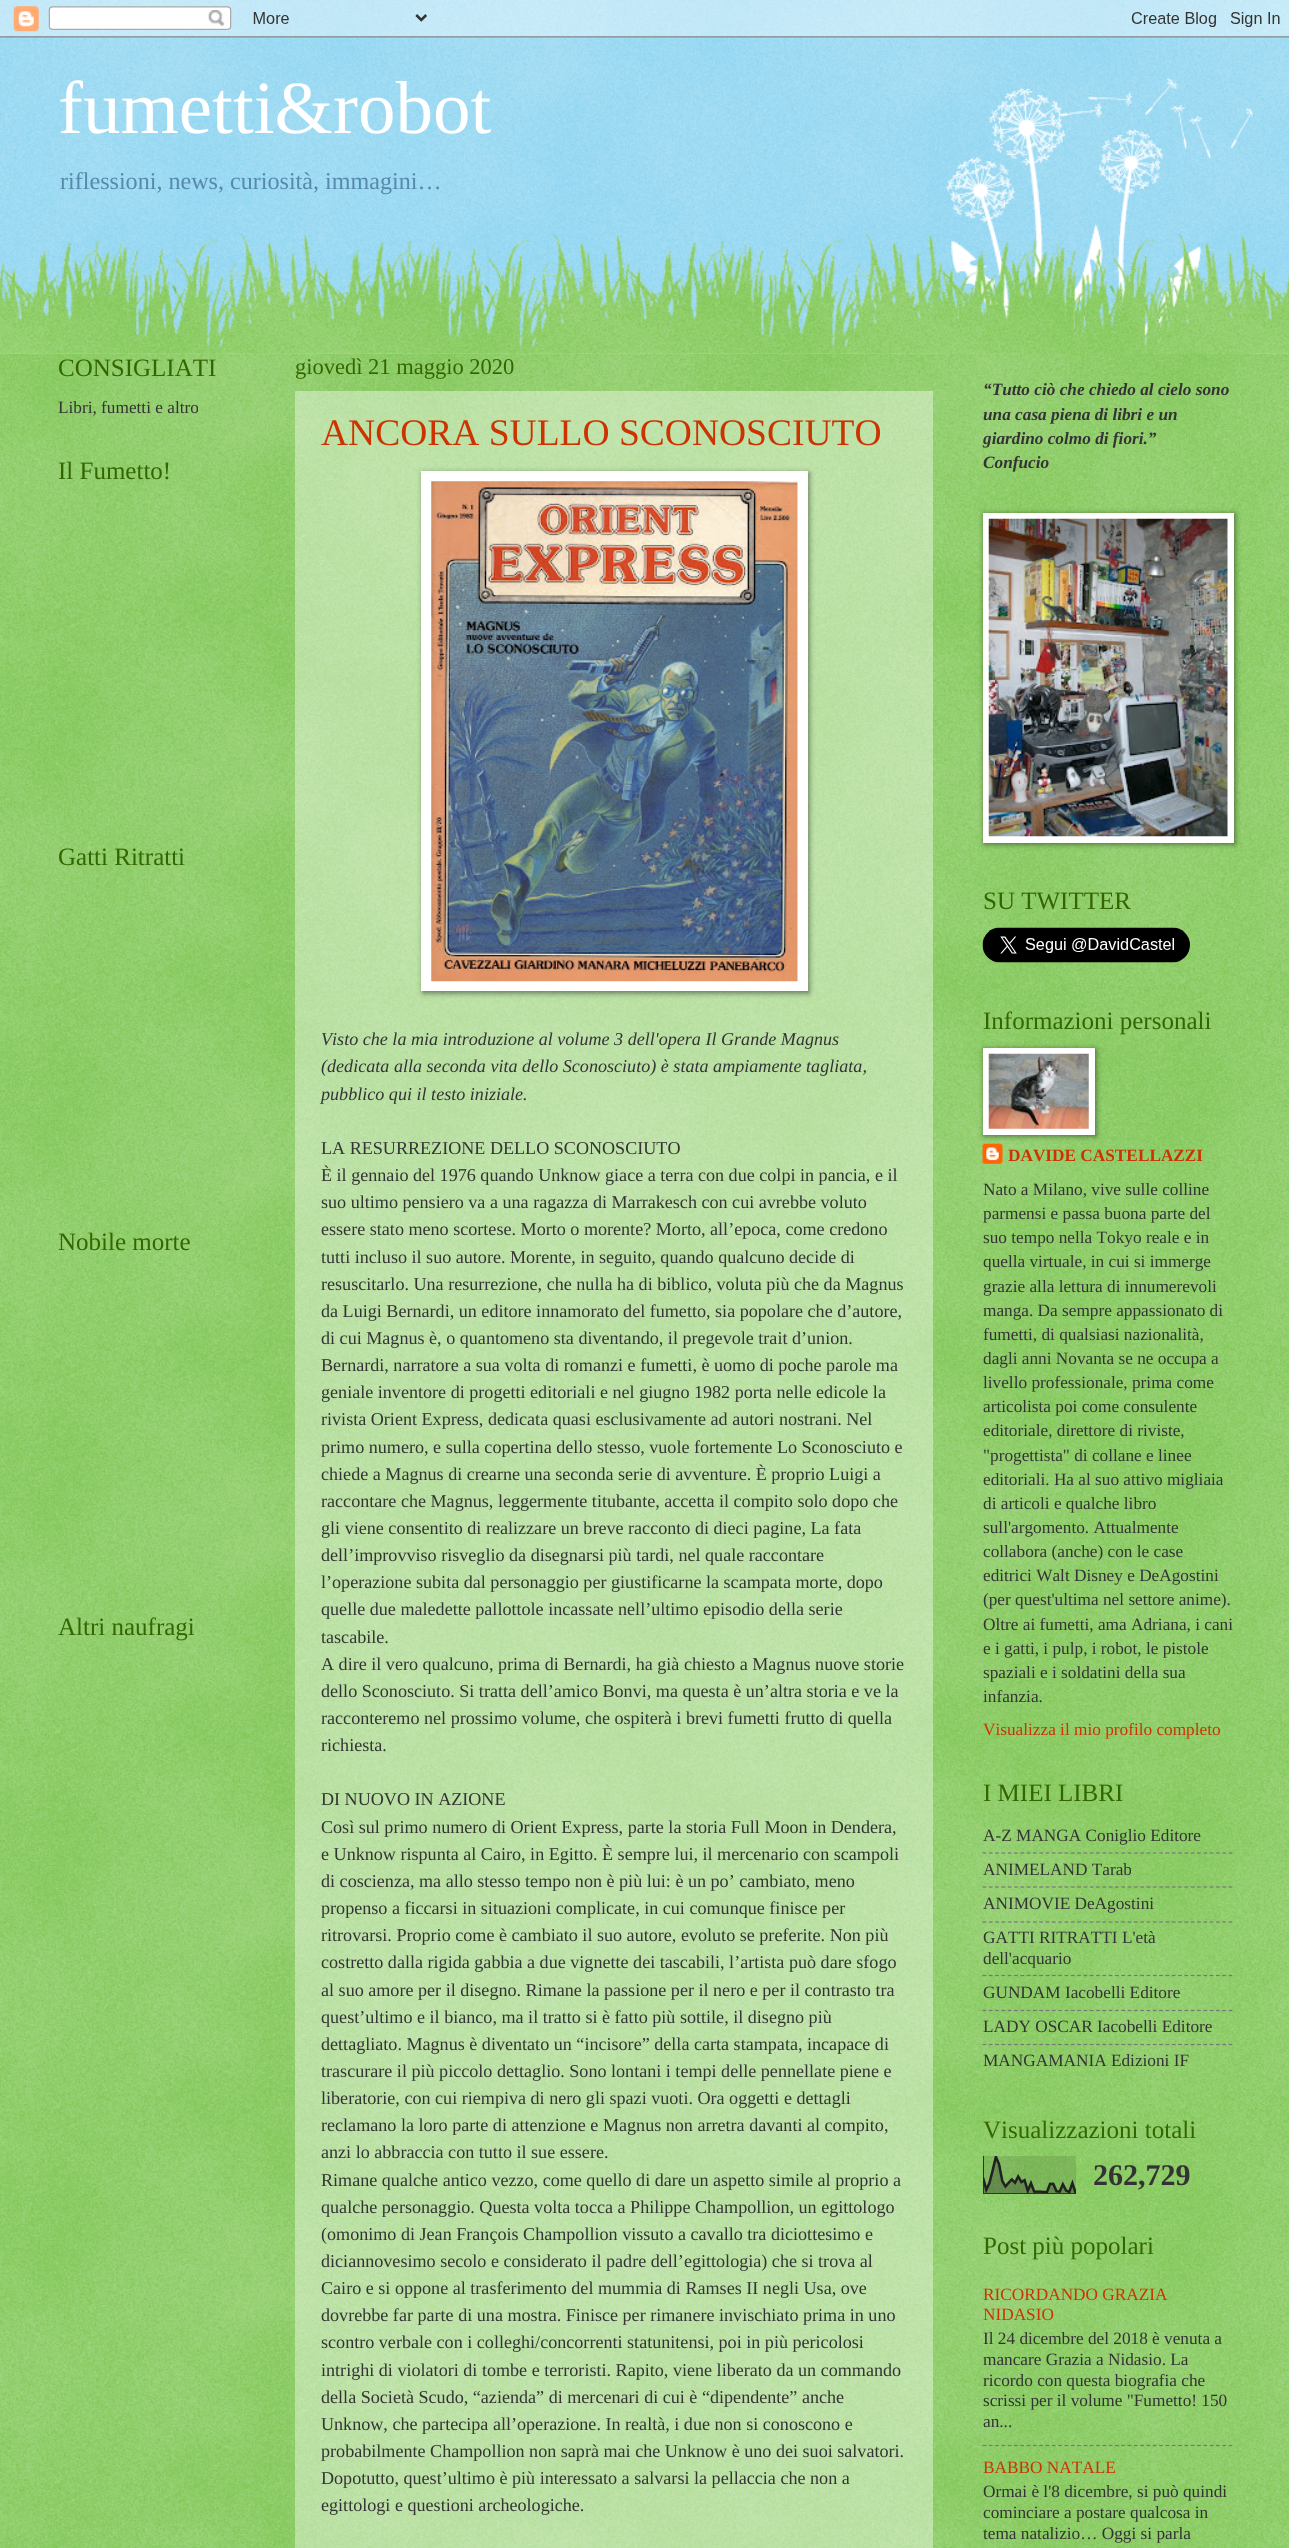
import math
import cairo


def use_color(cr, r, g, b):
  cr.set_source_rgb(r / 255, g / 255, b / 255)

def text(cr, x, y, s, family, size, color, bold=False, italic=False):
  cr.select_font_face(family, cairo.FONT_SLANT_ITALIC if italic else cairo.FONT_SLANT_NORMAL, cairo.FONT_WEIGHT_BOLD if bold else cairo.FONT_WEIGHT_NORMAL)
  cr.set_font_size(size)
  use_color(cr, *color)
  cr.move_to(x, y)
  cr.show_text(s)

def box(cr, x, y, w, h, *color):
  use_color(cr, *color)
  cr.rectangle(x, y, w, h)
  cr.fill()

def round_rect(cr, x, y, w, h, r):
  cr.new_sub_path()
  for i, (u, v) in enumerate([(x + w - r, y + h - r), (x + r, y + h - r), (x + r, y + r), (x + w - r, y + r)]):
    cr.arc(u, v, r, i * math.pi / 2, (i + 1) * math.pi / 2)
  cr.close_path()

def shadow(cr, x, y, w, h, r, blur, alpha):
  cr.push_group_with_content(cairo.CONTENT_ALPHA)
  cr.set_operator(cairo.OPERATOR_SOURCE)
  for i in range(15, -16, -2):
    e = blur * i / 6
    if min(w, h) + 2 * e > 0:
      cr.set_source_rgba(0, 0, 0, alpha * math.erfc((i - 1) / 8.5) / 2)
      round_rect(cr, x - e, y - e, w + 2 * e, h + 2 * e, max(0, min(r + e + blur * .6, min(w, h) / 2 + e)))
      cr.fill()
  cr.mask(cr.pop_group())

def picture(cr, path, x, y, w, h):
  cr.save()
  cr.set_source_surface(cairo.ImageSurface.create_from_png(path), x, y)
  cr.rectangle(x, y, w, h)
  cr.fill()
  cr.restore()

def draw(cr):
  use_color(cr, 119, 204, 238)
  cr.paint()
  picture(cr, "img_01.png", 0, 0, 1289, 354)
  picture(cr, "img_02.png", 0, 0, 1289, 38)
  box(cr, 0, 354, 1289, 2194, 102, 187, 51)
  picture(cr, "img_03.png", 0, 353, 1289, 2195)
  picture(cr, "img_04.png", 940, 78, 313, 276)
  picture(cr, "img_05.png", 0, 233, 1289, 121)
  cr.set_source_rgba(1, 1, 1, 0.4)
  cr.rectangle(295, 391, 638, 2157)
  cr.fill()
  use_color(cr, 0, 0, 0)
  shadow(cr, 423, 473, 386, 520, 0, 3, 0.5)
  box(cr, 421, 471, 387, 520, 255, 255, 255)
  picture(cr, "img_06.png", 431, 481, 367, 501)
  use_color(cr, 0, 0, 0)
  shadow(cr, 984, 514, 251, 330, 0, 3, 0.5)
  box(cr, 983, 513, 251, 330, 255, 255, 255)
  picture(cr, "img_07.png", 988, 518, 240, 319)
  picture(cr, "img_08.png", 982, 927, 208, 36)
  picture(cr, "img_10.png", 982, 1143, 21, 21)
  use_color(cr, 0, 0, 0)
  shadow(cr, 984, 1049, 112, 87, 0, 3, 0.5)
  box(cr, 983, 1048, 112, 87, 255, 255, 255)
  picture(cr, "img_09.png", 988, 1053, 101, 76)
  cr.new_path()
  cr.move_to(982.5, 1853)
  cr.line_to(1232.5, 1853)
  use_color(cr, 119, 119, 119)
  cr.set_line_width(1.2)
  cr.set_dash([3.75, 2.56])
  cr.stroke()
  cr.new_path()
  cr.move_to(982.5, 1887)
  cr.line_to(1232.5, 1887)
  cr.stroke()
  cr.new_path()
  cr.move_to(982.5, 1922)
  cr.line_to(1232.5, 1922)
  cr.stroke()
  cr.new_path()
  cr.move_to(982.5, 1975.5)
  cr.line_to(1232.5, 1975.5)
  cr.stroke()
  cr.new_path()
  cr.move_to(982.5, 2010.5)
  cr.line_to(1232.5, 2010.5)
  cr.stroke()
  cr.new_path()
  cr.move_to(982.5, 2044.5)
  cr.line_to(1232.5, 2044.5)
  cr.stroke()
  picture(cr, "img_11.png", 983, 2156, 93, 38)
  cr.new_path()
  cr.move_to(982.5, 2445.5)
  cr.line_to(1232.5, 2445.5)
  cr.stroke()
  text(cr, 58, 133, "fumetti&robot", "Liberation Serif", 75, (255, 255, 255))
  text(cr, 60, 189, "riflessioni, news, curiosità, immagini…", "Liberation Serif", 24.1, (85, 136, 170))
  text(cr, 58, 376, "CONSIGLIATI", "Liberation Serif", 25, (51, 102, 0))
  text(cr, 58, 413, "Libri, fumetti e altro", "Liberation Serif", 17.25, (51, 51, 51))
  text(cr, 58, 479, "Il Fumetto!", "Liberation Serif", 25, (51, 102, 0))
  text(cr, 58, 865, "Gatti Ritratti", "Liberation Serif", 25, (51, 102, 0))
  text(cr, 58, 1250, "Nobile morte", "Liberation Serif", 25, (51, 102, 0))
  text(cr, 58, 1635, "Altri naufragi", "Liberation Serif", 25, (51, 102, 0))
  text(cr, 295, 374, "giovedì 21 maggio 2020", "Liberation Serif", 22.5, (51, 102, 0))
  text(cr, 321, 445, "ANCORA SULLO SCONOSCIUTO", "Liberation Serif", 37.5, (204, 51, 0))
  text(cr, 321, 1045, "Visto che la mia introduzione al volume 3 dell'opera Il Grande Magnus", "Liberation Serif", 18.1, (51, 51, 51), italic=True)
  text(cr, 321, 1072, "(dedicata alla seconda vita dello Sconosciuto) è stata ampiamente tagliata,", "Liberation Serif", 18.1, (51, 51, 51), italic=True)
  text(cr, 321, 1100, "pubblico qui il testo iniziale.", "Liberation Serif", 18.1, (51, 51, 51), italic=True)
  text(cr, 321, 1154, "LA RESURREZIONE DELLO SCONOSCIUTO", "Liberation Serif", 18.1, (51, 51, 51))
  text(cr, 321, 1181, "È il gennaio del 1976 quando Unknow giace a terra con due colpi in pancia, e il", "Liberation Serif", 18.1, (51, 51, 51))
  text(cr, 321, 1208, "suo ultimo pensiero va a una ragazza di Marrakesch con cui avrebbe voluto", "Liberation Serif", 18.1, (51, 51, 51))
  text(cr, 321, 1235, "essere stato meno scortese. Morto o morente? Morto, all’epoca, come credono", "Liberation Serif", 18.1, (51, 51, 51))
  text(cr, 321, 1263, "tutti incluso il suo autore. Morente, in seguito, quando qualcuno decide di", "Liberation Serif", 18.1, (51, 51, 51))
  text(cr, 321, 1290, "resuscitarlo. Una resurrezione, che nulla ha di biblico, voluta più che da Magnus", "Liberation Serif", 18.1, (51, 51, 51))
  text(cr, 321, 1317, "da Luigi Bernardi, un editore innamorato del fumetto, sia popolare che d’autore,", "Liberation Serif", 18.1, (51, 51, 51))
  text(cr, 321, 1344, "di cui Magnus è, o quantomeno sta diventando, il pregevole trait d’union.", "Liberation Serif", 18.1, (51, 51, 51))
  text(cr, 321, 1371, "Bernardi, narratore a sua volta di romanzi e fumetti, è uomo di poche parole ma", "Liberation Serif", 18.1, (51, 51, 51))
  text(cr, 321, 1398, "geniale inventore di progetti editoriali e nel giugno 1982 porta nelle edicole la", "Liberation Serif", 18.1, (51, 51, 51))
  text(cr, 321, 1425, "rivista Orient Express, dedicata quasi esclusivamente ad autori nostrani. Nel", "Liberation Serif", 18.1, (51, 51, 51))
  text(cr, 321, 1453, "primo numero, e sulla copertina dello stesso, vuole fortemente Lo Sconosciuto e", "Liberation Serif", 18.1, (51, 51, 51))
  text(cr, 321, 1480, "chiede a Magnus di crearne una seconda serie di avventure. È proprio Luigi a", "Liberation Serif", 18.1, (51, 51, 51))
  text(cr, 321, 1507, "raccontare che Magnus, leggermente titubante, accetta il compito solo dopo che", "Liberation Serif", 18.1, (51, 51, 51))
  text(cr, 321, 1534, "gli viene consentito di realizzare un breve racconto di dieci pagine, La fata", "Liberation Serif", 18.1, (51, 51, 51))
  text(cr, 321, 1561, "dell’improvviso risveglio da disegnarsi più tardi, nel quale raccontare", "Liberation Serif", 18.1, (51, 51, 51))
  text(cr, 321, 1588, "l’operazione subita dal personaggio per giustificarne la scampata morte, dopo", "Liberation Serif", 18.1, (51, 51, 51))
  text(cr, 321, 1615, "quelle due maledette pallottole incassate nell’ultimo episodio della serie", "Liberation Serif", 18.1, (51, 51, 51))
  text(cr, 321, 1643, "tascabile.", "Liberation Serif", 18.1, (51, 51, 51))
  text(cr, 321, 1670, "A dire il vero qualcuno, prima di Bernardi, ha già chiesto a Magnus nuove storie", "Liberation Serif", 18.1, (51, 51, 51))
  text(cr, 321, 1697, "dello Sconosciuto. Si tratta dell’amico Bonvi, ma questa è un’altra storia e ve la", "Liberation Serif", 18.1, (51, 51, 51))
  text(cr, 321, 1724, "racconteremo nel prossimo volume, che ospiterà i brevi fumetti frutto di quella", "Liberation Serif", 18.1, (51, 51, 51))
  text(cr, 321, 1751, "richiesta.", "Liberation Serif", 18.1, (51, 51, 51))
  text(cr, 321, 1805, "DI NUOVO IN AZIONE", "Liberation Serif", 18.1, (51, 51, 51))
  text(cr, 321, 1833, "Così sul primo numero di Orient Express, parte la storia Full Moon in Dendera,", "Liberation Serif", 18.1, (51, 51, 51))
  text(cr, 321, 1860, "e Unknow rispunta al Cairo, in Egitto. È sempre lui, il mercenario con scampoli", "Liberation Serif", 18.1, (51, 51, 51))
  text(cr, 321, 1887, "di coscienza, ma allo stesso tempo non è più lui: è un po’ cambiato, meno", "Liberation Serif", 18.1, (51, 51, 51))
  text(cr, 321, 1914, "propenso a ficcarsi in situazioni complicate, in cui comunque finisce per", "Liberation Serif", 18.1, (51, 51, 51))
  text(cr, 321, 1941, "ritrovarsi. Proprio come è cambiato il suo autore, evoluto se preferite. Non più", "Liberation Serif", 18.1, (51, 51, 51))
  text(cr, 321, 1968, "costretto dalla rigida gabbia a due vignette dei tascabili, l’artista può dare sfogo", "Liberation Serif", 18.1, (51, 51, 51))
  text(cr, 321, 1996, "al suo amore per il disegno. Rimane la passione per il nero e per il contrasto tra", "Liberation Serif", 18.1, (51, 51, 51))
  text(cr, 321, 2023, "quest’ultimo e il bianco, ma il tratto si è fatto più sottile, il disegno più", "Liberation Serif", 18.1, (51, 51, 51))
  text(cr, 321, 2050, "dettagliato. Magnus è diventato un “incisore” della carta stampata, incapace di", "Liberation Serif", 18.1, (51, 51, 51))
  text(cr, 321, 2077, "trascurare il più piccolo dettaglio. Sono lontani i tempi delle pennellate piene e", "Liberation Serif", 18.1, (51, 51, 51))
  text(cr, 321, 2104, "liberatorie, con cui riempiva di nero gli spazi vuoti. Ora oggetti e dettagli", "Liberation Serif", 18.1, (51, 51, 51))
  text(cr, 321, 2131, "reclamano la loro parte di attenzione e Magnus non arretra davanti al compito,", "Liberation Serif", 18.1, (51, 51, 51))
  text(cr, 321, 2158, "anzi lo abbraccia con tutto il sue essere.", "Liberation Serif", 18.1, (51, 51, 51))
  text(cr, 321, 2186, "Rimane qualche antico vezzo, come quello di dare un aspetto simile al proprio a", "Liberation Serif", 18.1, (51, 51, 51))
  text(cr, 321, 2213, "qualche personaggio. Questa volta tocca a Philippe Champollion, un egittologo", "Liberation Serif", 18.1, (51, 51, 51))
  text(cr, 321, 2240, "(omonimo di Jean François Champollion vissuto a cavallo tra diciottesimo e", "Liberation Serif", 18.1, (51, 51, 51))
  text(cr, 321, 2267, "diciannovesimo secolo e considerato il padre dell’egittologia) che si trova al", "Liberation Serif", 18.1, (51, 51, 51))
  text(cr, 321, 2294, "Cairo e si oppone al trasferimento del mummia di Ramses II negli Usa, ove", "Liberation Serif", 18.1, (51, 51, 51))
  text(cr, 321, 2321, "dovrebbe far parte di una mostra. Finisce per rimanere invischiato prima in uno", "Liberation Serif", 18.1, (51, 51, 51))
  text(cr, 321, 2348, "scontro verbale con i colleghi/concorrenti statunitensi, poi in più pericolosi", "Liberation Serif", 18.1, (51, 51, 51))
  text(cr, 321, 2376, "intrighi di violatori di tombe e terroristi. Rapito, viene liberato da un commando", "Liberation Serif", 18.1, (51, 51, 51))
  text(cr, 321, 2403, "della Società Scudo, “azienda” di mercenari di cui è “dipendente” anche", "Liberation Serif", 18.1, (51, 51, 51))
  text(cr, 321, 2430, "Unknow, che partecipa all’operazione. In realtà, i due non si conoscono e", "Liberation Serif", 18.1, (51, 51, 51))
  text(cr, 321, 2457, "probabilmente Champollion non saprà mai che Unknow è uno dei suoi salvatori.", "Liberation Serif", 18.1, (51, 51, 51))
  text(cr, 321, 2484, "Dopotutto, quest’ultimo è più interessato a salvarsi la pellaccia che non a", "Liberation Serif", 18.1, (51, 51, 51))
  text(cr, 321, 2511, "egittologi e questioni archeologiche.", "Liberation Serif", 18.1, (51, 51, 51))
  text(cr, 983, 395, "“Tutto ciò che chiedo al cielo sono", "Liberation Serif", 17.25, (51, 51, 51), bold=True, italic=True)
  text(cr, 983, 420, "una casa piena di libri e un", "Liberation Serif", 17.25, (51, 51, 51), bold=True, italic=True)
  text(cr, 983, 444, "giardino colmo di fiori.”", "Liberation Serif", 17.25, (51, 51, 51), bold=True, italic=True)
  text(cr, 983, 468, "Confucio", "Liberation Serif", 17.25, (51, 51, 51), bold=True, italic=True)
  text(cr, 983, 909, "SU TWITTER", "Liberation Serif", 25, (51, 102, 0))
  text(cr, 983, 1029, "Informazioni personali", "Liberation Serif", 25, (51, 102, 0))
  text(cr, 1008, 1161, "DAVIDE CASTELLAZZI", "Liberation Serif", 17.25, (204, 51, 0), bold=True)
  text(cr, 983, 1195, "Nato a Milano, vive sulle colline", "Liberation Serif", 17.25, (51, 51, 51))
  text(cr, 983, 1219, "parmensi e passa buona parte del", "Liberation Serif", 17.25, (51, 51, 51))
  text(cr, 983, 1243, "suo tempo nella Tokyo reale e in", "Liberation Serif", 17.25, (51, 51, 51))
  text(cr, 983, 1267, "quella virtuale, in cui si immerge", "Liberation Serif", 17.25, (51, 51, 51))
  text(cr, 983, 1292, "grazie alla lettura di innumerevoli", "Liberation Serif", 17.25, (51, 51, 51))
  text(cr, 983, 1316, "manga. Da sempre appassionato di", "Liberation Serif", 17.25, (51, 51, 51))
  text(cr, 983, 1340, "fumetti, di qualsiasi nazionalità,", "Liberation Serif", 17.25, (51, 51, 51))
  text(cr, 983, 1364, "dagli anni Novanta se ne occupa a", "Liberation Serif", 17.25, (51, 51, 51))
  text(cr, 983, 1388, "livello professionale, prima come", "Liberation Serif", 17.25, (51, 51, 51))
  text(cr, 983, 1412, "articolista poi come consulente", "Liberation Serif", 17.25, (51, 51, 51))
  text(cr, 983, 1436, "editoriale, direttore di riviste,", "Liberation Serif", 17.25, (51, 51, 51))
  text(cr, 983, 1461, "\"progettista\" di collane e linee", "Liberation Serif", 17.25, (51, 51, 51))
  text(cr, 983, 1485, "editoriali. Ha al suo attivo migliaia", "Liberation Serif", 17.25, (51, 51, 51))
  text(cr, 983, 1509, "di articoli e qualche libro", "Liberation Serif", 17.25, (51, 51, 51))
  text(cr, 983, 1533, "sull'argomento. Attualmente", "Liberation Serif", 17.25, (51, 51, 51))
  text(cr, 983, 1557, "collabora (anche) con le case", "Liberation Serif", 17.25, (51, 51, 51))
  text(cr, 983, 1581, "editrici Walt Disney e DeAgostini", "Liberation Serif", 17.25, (51, 51, 51))
  text(cr, 983, 1605, "(per quest'ultima nel settore anime).", "Liberation Serif", 17.25, (51, 51, 51))
  text(cr, 983, 1630, "Oltre ai fumetti, ama Adriana, i cani", "Liberation Serif", 17.25, (51, 51, 51))
  text(cr, 983, 1654, "e i gatti, i pulp, i robot, le pistole", "Liberation Serif", 17.25, (51, 51, 51))
  text(cr, 983, 1678, "spaziali e i soldatini della sua", "Liberation Serif", 17.25, (51, 51, 51))
  text(cr, 983, 1702, "infanzia.", "Liberation Serif", 17.25, (51, 51, 51))
  text(cr, 983, 1735, "Visualizza il mio profilo completo", "Liberation Serif", 17.25, (204, 51, 0))
  text(cr, 983, 1801, "I MIEI LIBRI", "Liberation Serif", 25, (51, 102, 0))
  text(cr, 983, 1841, "A-Z MANGA Coniglio Editore", "Liberation Serif", 17.25, (51, 51, 51))
  text(cr, 983, 1875, "ANIMELAND Tarab", "Liberation Serif", 17.25, (51, 51, 51))
  text(cr, 983, 1909, "ANIMOVIE DeAgostini", "Liberation Serif", 17.25, (51, 51, 51))
  text(cr, 983, 1943, "GATTI RITRATTI L'età", "Liberation Serif", 17.25, (51, 51, 51))
  text(cr, 983, 1964, "dell'acquario", "Liberation Serif", 17.25, (51, 51, 51))
  text(cr, 983, 1998, "GUNDAM Iacobelli Editore", "Liberation Serif", 17.25, (51, 51, 51))
  text(cr, 983, 2032, "LADY OSCAR Iacobelli Editore", "Liberation Serif", 17.25, (51, 51, 51))
  text(cr, 983, 2066, "MANGAMANIA Edizioni IF", "Liberation Serif", 17.25, (51, 51, 51))
  text(cr, 983, 2138, "Visualizzazioni totali", "Liberation Serif", 25, (51, 102, 0))
  text(cr, 1093, 2185, "262,729", "Liberation Serif", 30, (51, 51, 51), bold=True)
  text(cr, 983, 2254, "Post più popolari", "Liberation Serif", 25, (51, 102, 0))
  text(cr, 983, 2300, "RICORDANDO GRAZIA", "Liberation Serif", 17.25, (204, 51, 0))
  text(cr, 983, 2320, "NIDASIO", "Liberation Serif", 17.25, (204, 51, 0))
  text(cr, 983, 2344, "Il 24 dicembre del 2018 è venuta a", "Liberation Serif", 17.25, (51, 51, 51))
  text(cr, 983, 2365, "mancare Grazia a Nidasio. La", "Liberation Serif", 17.25, (51, 51, 51))
  text(cr, 983, 2386, "ricordo con questa biografia che", "Liberation Serif", 17.25, (51, 51, 51))
  text(cr, 983, 2406, "scrissi per il volume \"Fumetto! 150", "Liberation Serif", 17.25, (51, 51, 51))
  text(cr, 983, 2427, "an...", "Liberation Serif", 17.25, (51, 51, 51))
  text(cr, 983, 2473, "BABBO NATALE", "Liberation Serif", 17.25, (204, 51, 0))
  text(cr, 983, 2497, "Ormai è l'8 dicembre, si può quindi", "Liberation Serif", 17.25, (51, 51, 51))
  text(cr, 983, 2518, "cominciare a postare qualcosa in", "Liberation Serif", 17.25, (51, 51, 51))
  text(cr, 983, 2539, "tema natalizio… Oggi si parla", "Liberation Serif", 17.25, (51, 51, 51))


surface = cairo.ImageSurface(cairo.FORMAT_RGB24, 1289, 2548)
cr = cairo.Context(surface)
options = cairo.FontOptions()
options.set_hint_metrics(cairo.HINT_METRICS_OFF)
options.set_hint_style(cairo.HINT_STYLE_NONE)
cr.set_font_options(options)
cr.set_miter_limit(4)
draw(cr)
surface.write_to_png("out.png")
